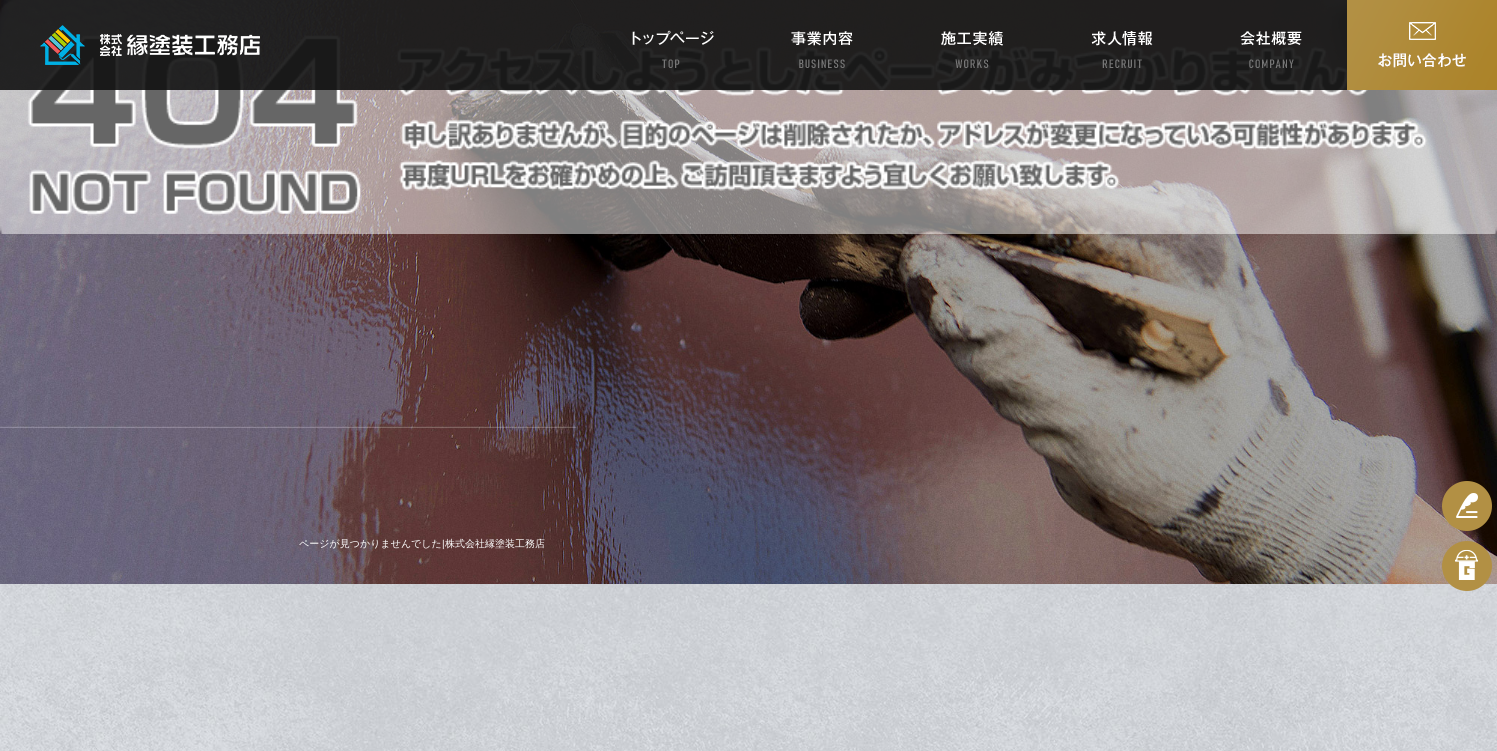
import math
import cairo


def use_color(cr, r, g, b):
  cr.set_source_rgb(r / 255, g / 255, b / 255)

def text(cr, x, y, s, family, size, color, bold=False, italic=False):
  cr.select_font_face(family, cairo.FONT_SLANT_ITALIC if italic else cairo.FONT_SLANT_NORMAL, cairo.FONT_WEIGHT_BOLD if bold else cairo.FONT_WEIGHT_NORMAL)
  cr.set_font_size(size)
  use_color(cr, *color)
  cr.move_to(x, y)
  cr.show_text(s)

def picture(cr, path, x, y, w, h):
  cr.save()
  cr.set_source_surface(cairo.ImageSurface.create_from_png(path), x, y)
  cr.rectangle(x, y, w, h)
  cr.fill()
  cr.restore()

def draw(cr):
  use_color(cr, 255, 255, 255)
  cr.paint()
  picture(cr, "img_01.png", 0, 584, 1497, 167)
  picture(cr, "img_02.png", 0, 0, 1497, 584)
  picture(cr, "img_03.png", 0, 0, 1497, 234)
  cr.set_source_rgba(0.067, 0.067, 0.067, 0.9)
  cr.rectangle(0, 0, 1347, 90)
  cr.fill()
  picture(cr, "img_04.png", 632, 30, 82, 38)
  picture(cr, "img_05.png", 791, 31, 62, 37)
  picture(cr, "img_06.png", 941, 31, 62, 37)
  picture(cr, "img_07.png", 1091, 31, 62, 37)
  picture(cr, "img_08.png", 1240, 31, 62, 37)
  picture(cr, "img_09.png", 1347, 0, 150, 90)
  picture(cr, "img_10.png", 40, 25, 220, 40)
  picture(cr, "img_11.png", 1442, 481, 50, 50)
  picture(cr, "img_12.png", 1442, 541, 50, 50)
  text(cr, 299, 547, "ページが見つかりませんでした", "WenQuanYi Zen Hei Medium", 10, (255, 255, 255))
  text(cr, 442, 547, "|", "Liberation Sans", 10, (255, 255, 255))
  text(cr, 445, 547, "株式会社縁塗装工務店", "WenQuanYi Zen Hei Medium", 10, (255, 255, 255))


surface = cairo.ImageSurface(cairo.FORMAT_RGB24, 1497, 751)
cr = cairo.Context(surface)
options = cairo.FontOptions()
options.set_hint_metrics(cairo.HINT_METRICS_OFF)
options.set_hint_style(cairo.HINT_STYLE_NONE)
cr.set_font_options(options)
cr.set_miter_limit(4)
draw(cr)
surface.write_to_png("out.png")
